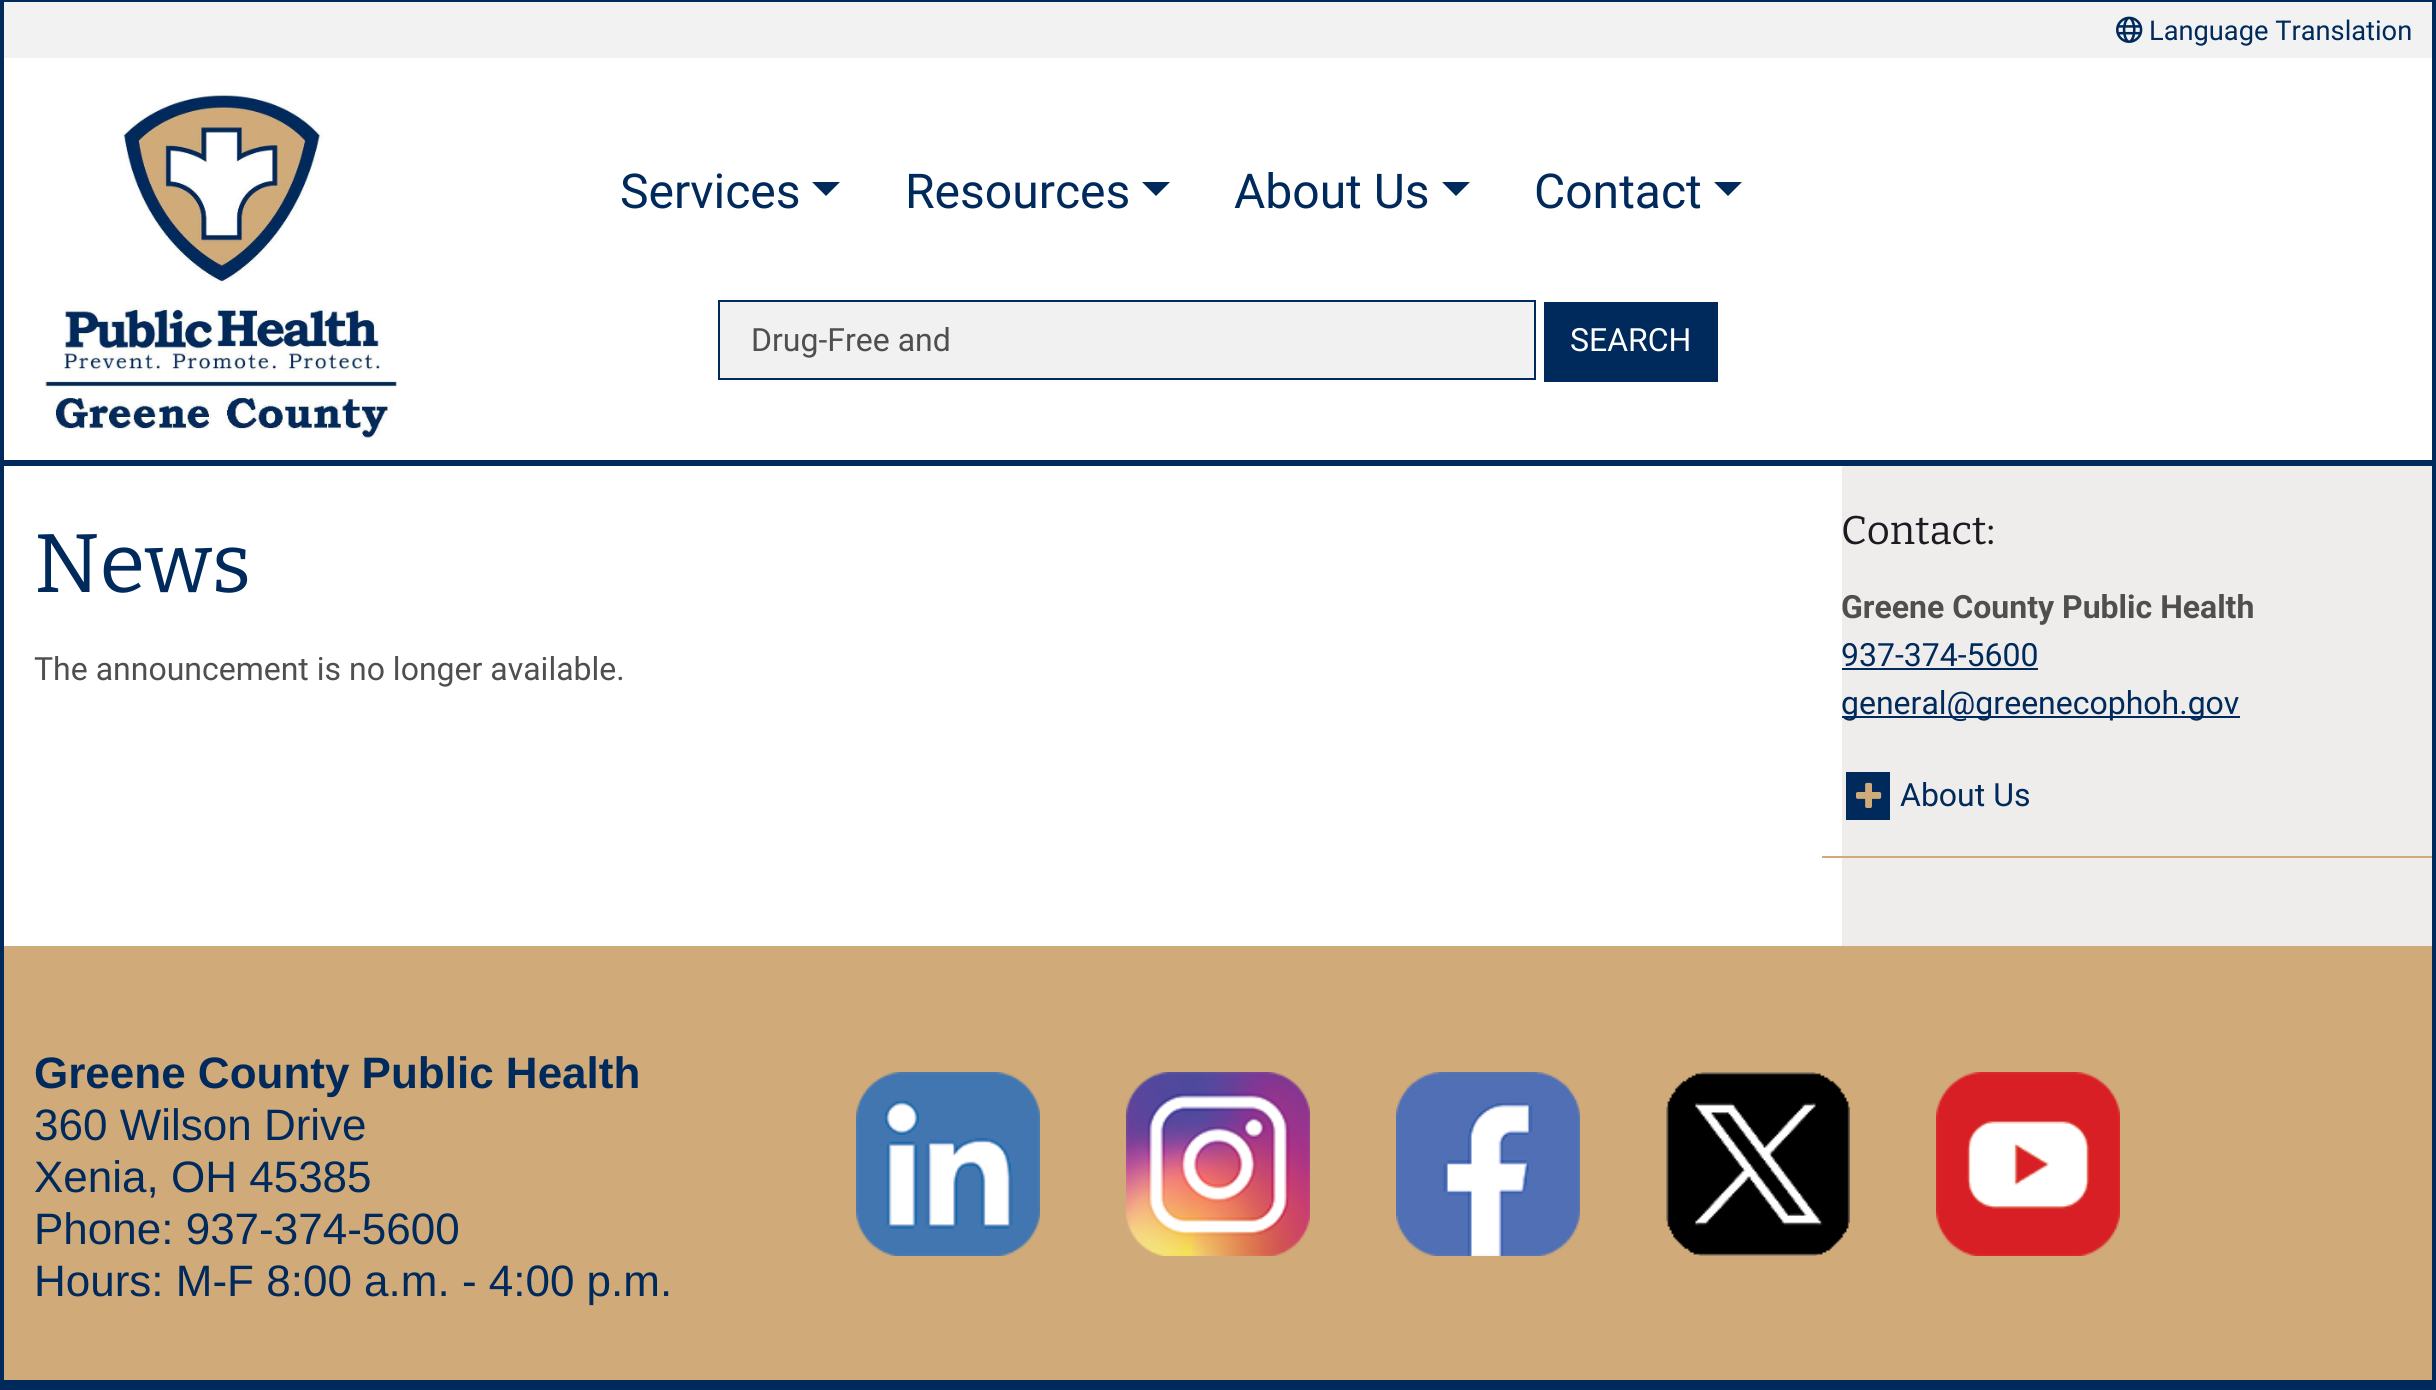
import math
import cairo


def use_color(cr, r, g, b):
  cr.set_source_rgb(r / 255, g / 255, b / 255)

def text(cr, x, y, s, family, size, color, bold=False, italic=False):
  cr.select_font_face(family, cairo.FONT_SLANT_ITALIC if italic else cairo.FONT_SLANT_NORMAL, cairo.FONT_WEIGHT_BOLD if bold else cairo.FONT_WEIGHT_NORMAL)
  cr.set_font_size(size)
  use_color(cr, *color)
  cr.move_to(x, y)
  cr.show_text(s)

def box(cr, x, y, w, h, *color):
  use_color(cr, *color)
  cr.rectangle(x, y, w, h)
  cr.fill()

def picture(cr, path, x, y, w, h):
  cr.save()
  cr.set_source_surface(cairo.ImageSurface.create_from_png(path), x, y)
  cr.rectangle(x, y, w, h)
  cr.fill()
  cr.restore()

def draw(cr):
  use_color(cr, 255, 255, 255)
  cr.paint()
  cr.rectangle(2, 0, 2432, 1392)
  use_color(cr, 0, 42, 92)
  cr.set_line_width(4)
  cr.stroke()
  box(cr, 4, 2, 2428, 56, 242, 242, 242)
  picture(cr, "img_01.png", 2116, 16, 27, 27)
  picture(cr, "img_02.png", 44, 92, 354, 350)
  use_color(cr, 0, 42, 92)
  cr.new_path()
  cr.move_to(812, 182)
  cr.line_to(840, 182)
  cr.line_to(826, 196)
  cr.close_path()
  cr.fill()
  cr.new_path()
  cr.move_to(1142, 182)
  cr.line_to(1170, 182)
  cr.line_to(1156, 196)
  cr.close_path()
  cr.fill()
  cr.new_path()
  cr.move_to(1442, 182)
  cr.line_to(1470, 182)
  cr.line_to(1456, 196)
  cr.close_path()
  cr.fill()
  cr.new_path()
  cr.move_to(1714, 182)
  cr.line_to(1742, 182)
  cr.line_to(1728, 196)
  cr.close_path()
  cr.fill()
  use_color(cr, 241, 241, 241)
  cr.rectangle(719, 301, 816, 78)
  cr.fill_preserve()
  use_color(cr, 0, 42, 92)
  cr.set_line_width(2)
  cr.stroke()
  box(cr, 1544, 302, 174, 80, 0, 42, 92)
  box(cr, 4, 460, 2428, 6, 0, 42, 92)
  box(cr, 1842, 466, 590, 480, 239, 237, 235)
  box(cr, 1842, 668, 196, 2, 0, 42, 92)
  box(cr, 1842, 716, 398, 2, 0, 42, 92)
  box(cr, 1822, 856, 610, 2, 208, 170, 121)
  box(cr, 1846, 772, 44, 48, 0, 42, 92)
  picture(cr, "img_03.png", 1856, 782, 26, 26)
  box(cr, 4, 946, 2428, 434, 208, 170, 121)
  picture(cr, "img_04.png", 856, 1072, 184, 184)
  picture(cr, "img_05.png", 1126, 1072, 184, 184)
  picture(cr, "img_06.png", 1396, 1072, 184, 184)
  picture(cr, "img_07.png", 1666, 1072, 184, 184)
  picture(cr, "img_08.png", 1936, 1072, 184, 184)
  box(cr, 4, 1380, 2428, 10, 0, 42, 92)
  text(cr, 2149, 40, "Language Translation", "Roboto", 27.25, (0, 42, 92))
  text(cr, 620, 208, "Services", "Roboto", 48, (0, 42, 92))
  text(cr, 905, 208, "Resources", "Roboto", 48, (0, 42, 92))
  text(cr, 1234, 208, "About Us", "Roboto", 48, (0, 42, 92))
  text(cr, 1534, 208, "Contact", "Roboto", 48, (0, 42, 92))
  text(cr, 751, 351, "Drug-Free and", "Roboto", 32, (79, 79, 79))
  text(cr, 1570, 351, "SEARCH", "Roboto", 32, (255, 255, 255))
  text(cr, 34, 592, "News", "Bitter", 83, (0, 42, 92))
  text(cr, 34, 680, "The announcement is no longer available.", "Roboto", 32, (79, 79, 79))
  text(cr, 1841, 544, "Contact:", "Bitter", 40, (27, 27, 33))
  text(cr, 1841, 618, "Greene County Public Health", "Roboto", 32, (79, 79, 79), bold=True)
  text(cr, 1841, 666, "937-374-5600", "Roboto", 32, (0, 42, 92))
  text(cr, 1841, 714, "general@greenecophoh.gov", "Roboto", 32, (0, 42, 92))
  text(cr, 1900, 806, "About Us", "Roboto", 32, (0, 42, 92))
  text(cr, 34, 1088, "Greene County Public Health", "Liberation Sans", 44, (0, 42, 92), bold=True)
  text(cr, 34, 1140, "360 Wilson Drive", "Liberation Sans", 44, (0, 42, 92))
  text(cr, 34, 1192, "Xenia, OH 45385", "Liberation Sans", 44, (0, 42, 92))
  text(cr, 34, 1244, "Phone: 937-374-5600", "Liberation Sans", 44, (0, 42, 92))
  text(cr, 34, 1296, "Hours: M-F 8:00 a.m. - 4:00 p.m.", "Liberation Sans", 44, (0, 42, 92))


surface = cairo.ImageSurface(cairo.FORMAT_RGB24, 2436, 1390)
cr = cairo.Context(surface)
options = cairo.FontOptions()
options.set_hint_metrics(cairo.HINT_METRICS_OFF)
options.set_hint_style(cairo.HINT_STYLE_NONE)
cr.set_font_options(options)
cr.set_miter_limit(4)
draw(cr)
surface.write_to_png("out.png")
